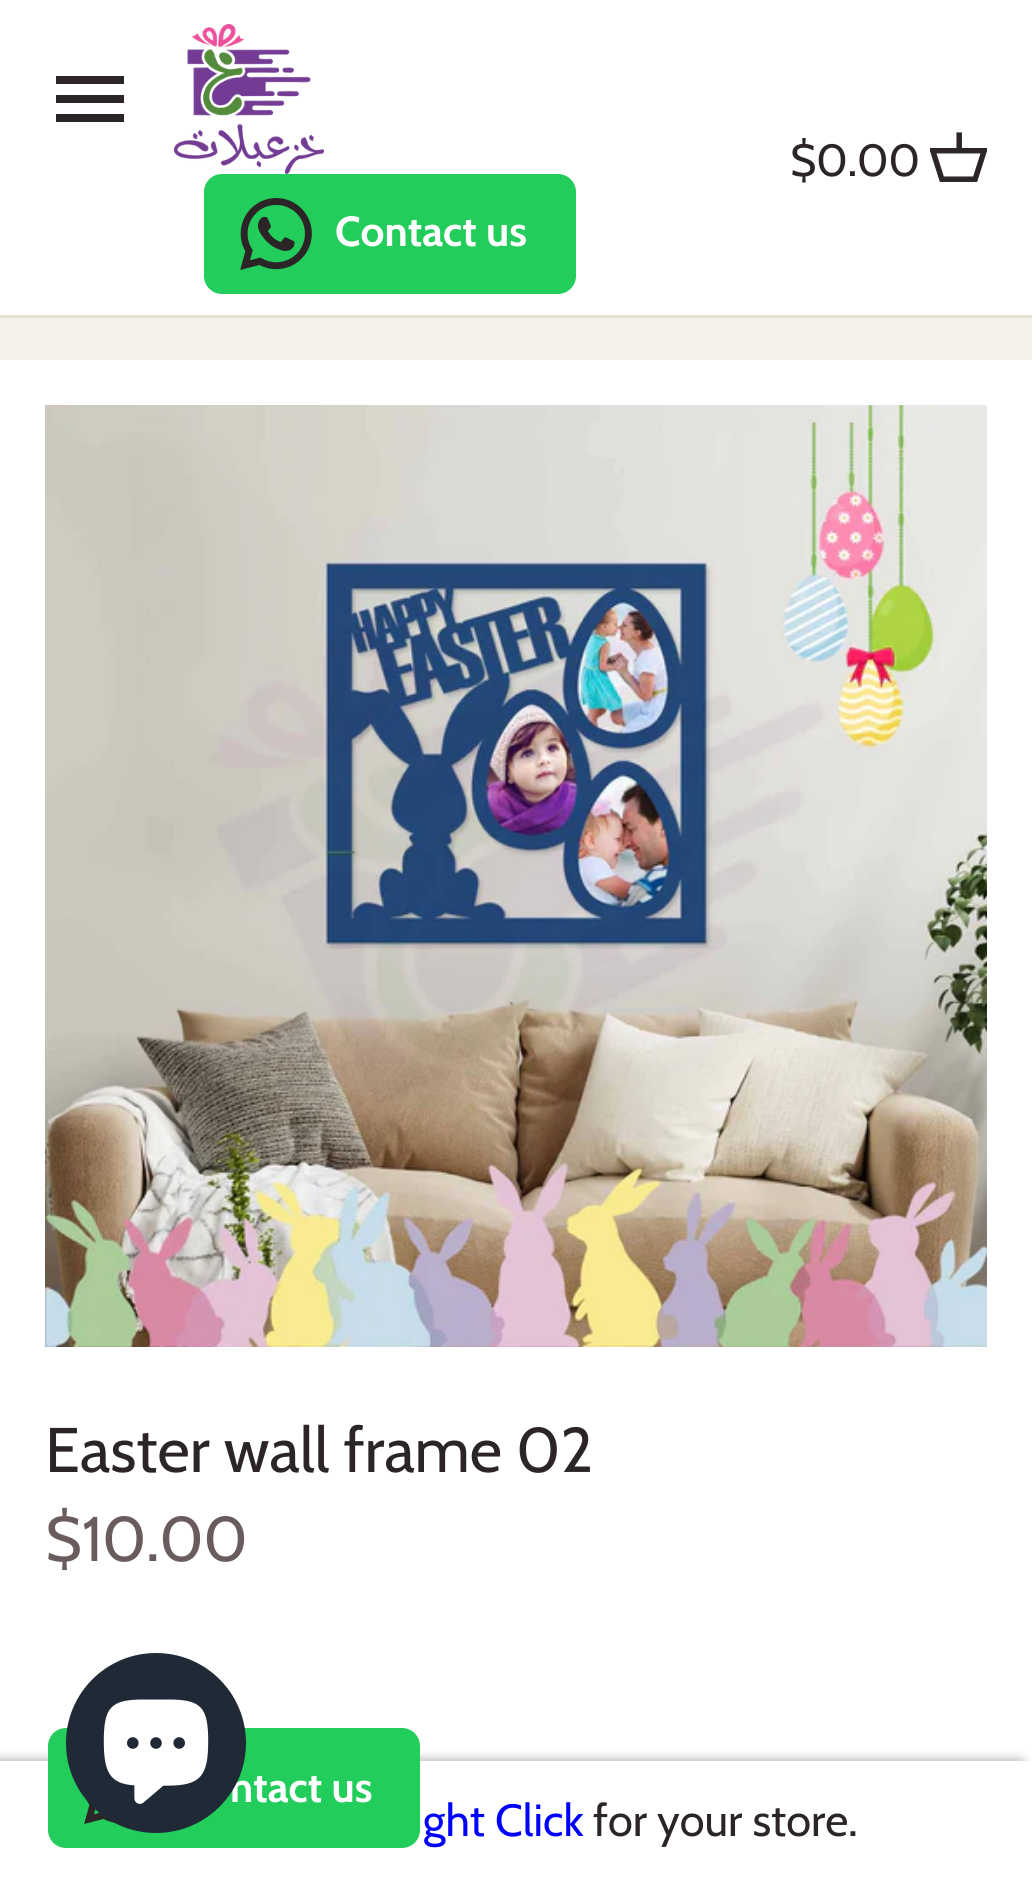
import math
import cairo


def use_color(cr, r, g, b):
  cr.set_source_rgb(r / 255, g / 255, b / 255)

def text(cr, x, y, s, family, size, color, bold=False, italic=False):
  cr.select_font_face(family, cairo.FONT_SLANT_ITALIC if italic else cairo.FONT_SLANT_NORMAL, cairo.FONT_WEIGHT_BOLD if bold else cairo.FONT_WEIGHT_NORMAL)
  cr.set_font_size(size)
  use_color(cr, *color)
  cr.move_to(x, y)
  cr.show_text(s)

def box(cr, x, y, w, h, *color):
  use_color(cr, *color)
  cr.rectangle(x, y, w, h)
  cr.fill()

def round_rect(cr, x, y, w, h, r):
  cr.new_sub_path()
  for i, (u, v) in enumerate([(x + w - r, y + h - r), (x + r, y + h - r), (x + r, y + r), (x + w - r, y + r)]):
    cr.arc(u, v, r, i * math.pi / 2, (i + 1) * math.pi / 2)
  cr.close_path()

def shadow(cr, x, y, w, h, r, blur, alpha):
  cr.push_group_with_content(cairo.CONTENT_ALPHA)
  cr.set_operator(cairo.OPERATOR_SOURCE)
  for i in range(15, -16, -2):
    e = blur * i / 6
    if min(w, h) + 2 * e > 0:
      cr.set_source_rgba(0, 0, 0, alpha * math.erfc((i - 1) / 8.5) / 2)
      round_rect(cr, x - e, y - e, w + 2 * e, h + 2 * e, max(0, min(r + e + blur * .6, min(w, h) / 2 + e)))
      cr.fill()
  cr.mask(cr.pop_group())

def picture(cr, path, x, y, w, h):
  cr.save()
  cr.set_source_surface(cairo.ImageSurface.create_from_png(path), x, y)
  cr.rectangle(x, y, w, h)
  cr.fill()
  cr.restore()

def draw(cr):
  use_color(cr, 255, 255, 255)
  cr.paint()
  box(cr, 0, 315, 1032, 3, 229, 226, 212)
  use_color(cr, 44, 37, 40)
  cr.new_path()
  cr.move_to(56, 122)
  cr.line_to(124, 122)
  cr.line_to(124, 114)
  cr.line_to(56, 114)
  cr.close_path()
  cr.move_to(56, 103)
  cr.line_to(124, 103)
  cr.line_to(124, 95)
  cr.line_to(56, 95)
  cr.close_path()
  cr.move_to(56, 76)
  cr.line_to(56, 84)
  cr.line_to(124, 84)
  cr.line_to(124, 76)
  cr.close_path()
  cr.fill()
  picture(cr, "img_01.png", 174, 24, 150, 150)
  picture(cr, "img_02.png", 930, 132, 57, 50)
  use_color(cr, 34, 205, 91)
  round_rect(cr, 204, 174, 372, 120, 18)
  cr.fill()
  picture(cr, "img_03.png", 240, 198, 72, 72)
  box(cr, 0, 318, 1032, 42, 244, 242, 233)
  picture(cr, "img_04.png", 45, 405, 942, 942)
  use_color(cr, 0, 0, 0)
  shadow(cr, -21, 1758, 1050, 135, 12, 4.5, 0.25)
  box(cr, 0, 1761, 1032, 134, 255, 255, 255)
  use_color(cr, 34, 205, 91)
  round_rect(cr, 48, 1728, 372, 120, 18)
  cr.fill()
  picture(cr, "img_06.png", 84, 1799, 31, 25)
  text(cr, 790, 176, "$0.00", "Cabin", 45, (44, 37, 40))
  text(cr, 335, 246, "Contact us", "Cabin", 42, (255, 255, 255), bold=True)
  text(cr, 45, 1472, "Easter wall frame 02", "Cabin", 63, (44, 37, 40))
  text(cr, 45, 1561, "$10.00", "Cabin", 63, (106, 91, 92))
  text(cr, 230, 1802, "ntact us", "Cabin", 42, (255, 255, 255), bold=True)
  use_color(cr, 32, 42, 54)
  cr.new_path()
  cr.arc(156, 1743, 90, 0, 2 * math.pi)
  cr.fill()
  picture(cr, "img_05.png", 103, 1699, 106, 105)
  text(cr, 423, 1836, "ght Click", "Cabin", 45, (0, 0, 255))
  text(cr, 593, 1836, "for your store.", "Cabin", 45, (44, 37, 40))


surface = cairo.ImageSurface(cairo.FORMAT_RGB24, 1032, 1895)
cr = cairo.Context(surface)
options = cairo.FontOptions()
options.set_hint_metrics(cairo.HINT_METRICS_OFF)
options.set_hint_style(cairo.HINT_STYLE_NONE)
cr.set_font_options(options)
cr.set_miter_limit(4)
draw(cr)
surface.write_to_png("out.png")
